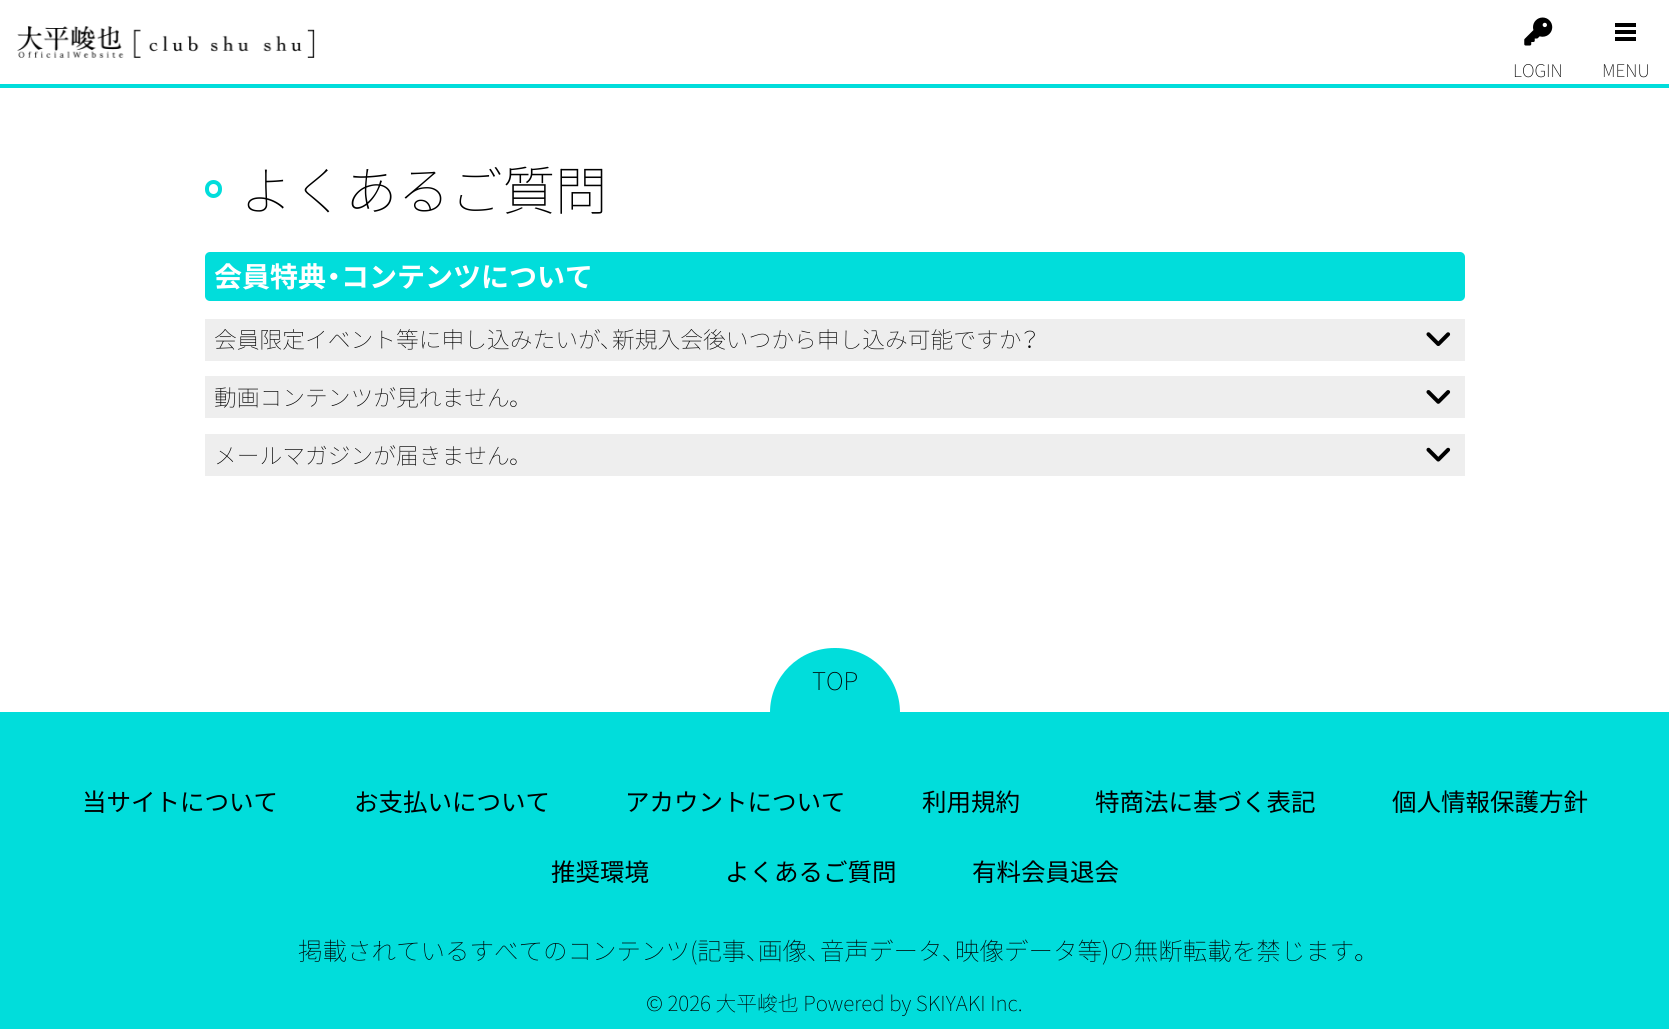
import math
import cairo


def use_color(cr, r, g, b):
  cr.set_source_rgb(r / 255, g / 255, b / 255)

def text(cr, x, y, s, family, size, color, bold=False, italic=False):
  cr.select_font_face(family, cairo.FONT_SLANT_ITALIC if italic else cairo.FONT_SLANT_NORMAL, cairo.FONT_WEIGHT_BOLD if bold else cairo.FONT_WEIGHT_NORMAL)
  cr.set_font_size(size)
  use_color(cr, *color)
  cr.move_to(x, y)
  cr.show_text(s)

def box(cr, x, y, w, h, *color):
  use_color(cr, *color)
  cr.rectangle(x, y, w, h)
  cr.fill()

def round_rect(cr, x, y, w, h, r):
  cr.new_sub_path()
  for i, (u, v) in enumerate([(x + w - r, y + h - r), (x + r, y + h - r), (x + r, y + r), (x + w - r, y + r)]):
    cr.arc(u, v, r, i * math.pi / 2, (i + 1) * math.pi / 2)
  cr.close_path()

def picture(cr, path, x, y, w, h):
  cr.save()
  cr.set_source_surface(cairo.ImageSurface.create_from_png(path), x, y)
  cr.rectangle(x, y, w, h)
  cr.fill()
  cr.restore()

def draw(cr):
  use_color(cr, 255, 255, 255)
  cr.paint()
  picture(cr, "img_01.png", 1524, 17, 29, 29)
  box(cr, 1615, 23, 21, 4, 0, 0, 0)
  box(cr, 1615, 30, 21, 4, 0, 0, 0)
  box(cr, 1615, 37, 21, 4, 0, 0, 0)
  box(cr, 0, 84, 1669, 4, 1, 221, 219)
  picture(cr, "img_02.png", 17, 26, 298, 32)
  round_rect(cr, 207, 182, 13, 14, 6.5)
  cr.set_line_width(4)
  cr.stroke()
  round_rect(cr, 205, 252, 1260, 49, 5)
  cr.fill()
  box(cr, 205, 319, 1260, 42, 238, 238, 238)
  picture(cr, "img_03.png", 1426, 332, 25, 14)
  box(cr, 205, 376, 1260, 42, 238, 238, 238)
  picture(cr, "img_04.png", 1426, 390, 25, 14)
  box(cr, 205, 434, 1260, 42, 238, 238, 238)
  picture(cr, "img_05.png", 1426, 447, 25, 15)
  box(cr, 0, 712, 1669, 317, 1, 221, 219)
  round_rect(cr, 770, 648, 130, 129, 64.5)
  cr.fill()
  text(cr, 1513, 77, "LOGIN", "Noto Sans JP Thin", 17.5, (0, 0, 0))
  text(cr, 1602, 77, "MENU", "Noto Sans JP Thin", 17.5, (0, 0, 0))
  text(cr, 240, 210, "よくあるご質問", "Noto Sans JP Thin", 52.5, (0, 0, 0))
  text(cr, 214, 287, "会員特典", "Noto Sans JP", 28, (255, 255, 255), bold=True)
  text(cr, 326, 287, "・", "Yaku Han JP", 28, (255, 255, 255), bold=True)
  text(cr, 341, 287, "コンテンツについて", "Noto Sans JP", 28, (255, 255, 255), bold=True)
  text(cr, 214, 348, "会員限定イベント等に申し込みたいが", "Noto Sans JP Thin", 22.75, (0, 0, 0))
  text(cr, 600, 348, "、", "Yaku Han JP Thin", 22.75, (0, 0, 0))
  text(cr, 612, 348, "新規入会後いつから申し込み可能ですか", "Noto Sans JP Thin", 22.75, (0, 0, 0))
  text(cr, 1021, 348, "？", "Yaku Han JP Thin", 22.75, (0, 0, 0))
  text(cr, 214, 406, "動画コンテンツが見れません", "Noto Sans JP Thin", 22.75, (0, 0, 0))
  text(cr, 509, 406, "。", "Yaku Han JP Thin", 22.75, (0, 0, 0))
  text(cr, 214, 464, "メールマガジンが届きません", "Noto Sans JP Thin", 22.75, (0, 0, 0))
  text(cr, 509, 464, "。", "Yaku Han JP Thin", 22.75, (0, 0, 0))
  text(cr, 812, 690, "TOP", "Noto Sans JP Thin", 24.5, (0, 0, 0))
  text(cr, 82, 811, "当サイトについて", "Noto Sans JP", 24.5, (0, 0, 0))
  text(cr, 354, 811, "お支払いについて", "Noto Sans JP", 24.5, (0, 0, 0))
  text(cr, 625, 811, "アカウントについて", "Noto Sans JP", 24.5, (0, 0, 0))
  text(cr, 922, 811, "利用規約", "Noto Sans JP", 24.5, (0, 0, 0))
  text(cr, 1095, 811, "特商法に基づく表記", "Noto Sans JP", 24.5, (0, 0, 0))
  text(cr, 1392, 811, "個人情報保護方針", "Noto Sans JP", 24.5, (0, 0, 0))
  text(cr, 551, 881, "推奨環境", "Noto Sans JP", 24.5, (0, 0, 0))
  text(cr, 725, 881, "よくあるご質問", "Noto Sans JP", 24.5, (0, 0, 0))
  text(cr, 972, 881, "有料会員退会", "Noto Sans JP", 24.5, (0, 0, 0))
  text(cr, 298, 960, "掲載されているすべてのコンテンツ(記事", "Noto Sans JP Thin", 24.5, (0, 0, 0))
  text(cr, 746, 960, "、", "Yaku Han JP Thin", 24.5, (0, 0, 0))
  text(cr, 758, 960, "画像", "Noto Sans JP Thin", 24.5, (0, 0, 0))
  text(cr, 807, 960, "、", "Yaku Han JP Thin", 24.5, (0, 0, 0))
  text(cr, 820, 960, "音声データ", "Noto Sans JP Thin", 24.5, (0, 0, 0))
  text(cr, 942, 960, "、", "Yaku Han JP Thin", 24.5, (0, 0, 0))
  text(cr, 955, 960, "映像データ等)の無断転載を禁じます", "Noto Sans JP Thin", 24.5, (0, 0, 0))
  text(cr, 1354, 960, "。", "Yaku Han JP Thin", 24.5, (0, 0, 0))
  text(cr, 646, 1011, "© 2026 大平峻也 Powered by SKIYAKI Inc.", "Noto Sans JP Thin", 20.8, (0, 0, 0))


surface = cairo.ImageSurface(cairo.FORMAT_RGB24, 1669, 1029)
cr = cairo.Context(surface)
options = cairo.FontOptions()
options.set_hint_metrics(cairo.HINT_METRICS_OFF)
options.set_hint_style(cairo.HINT_STYLE_NONE)
cr.set_font_options(options)
cr.set_miter_limit(4)
draw(cr)
surface.write_to_png("out.png")
